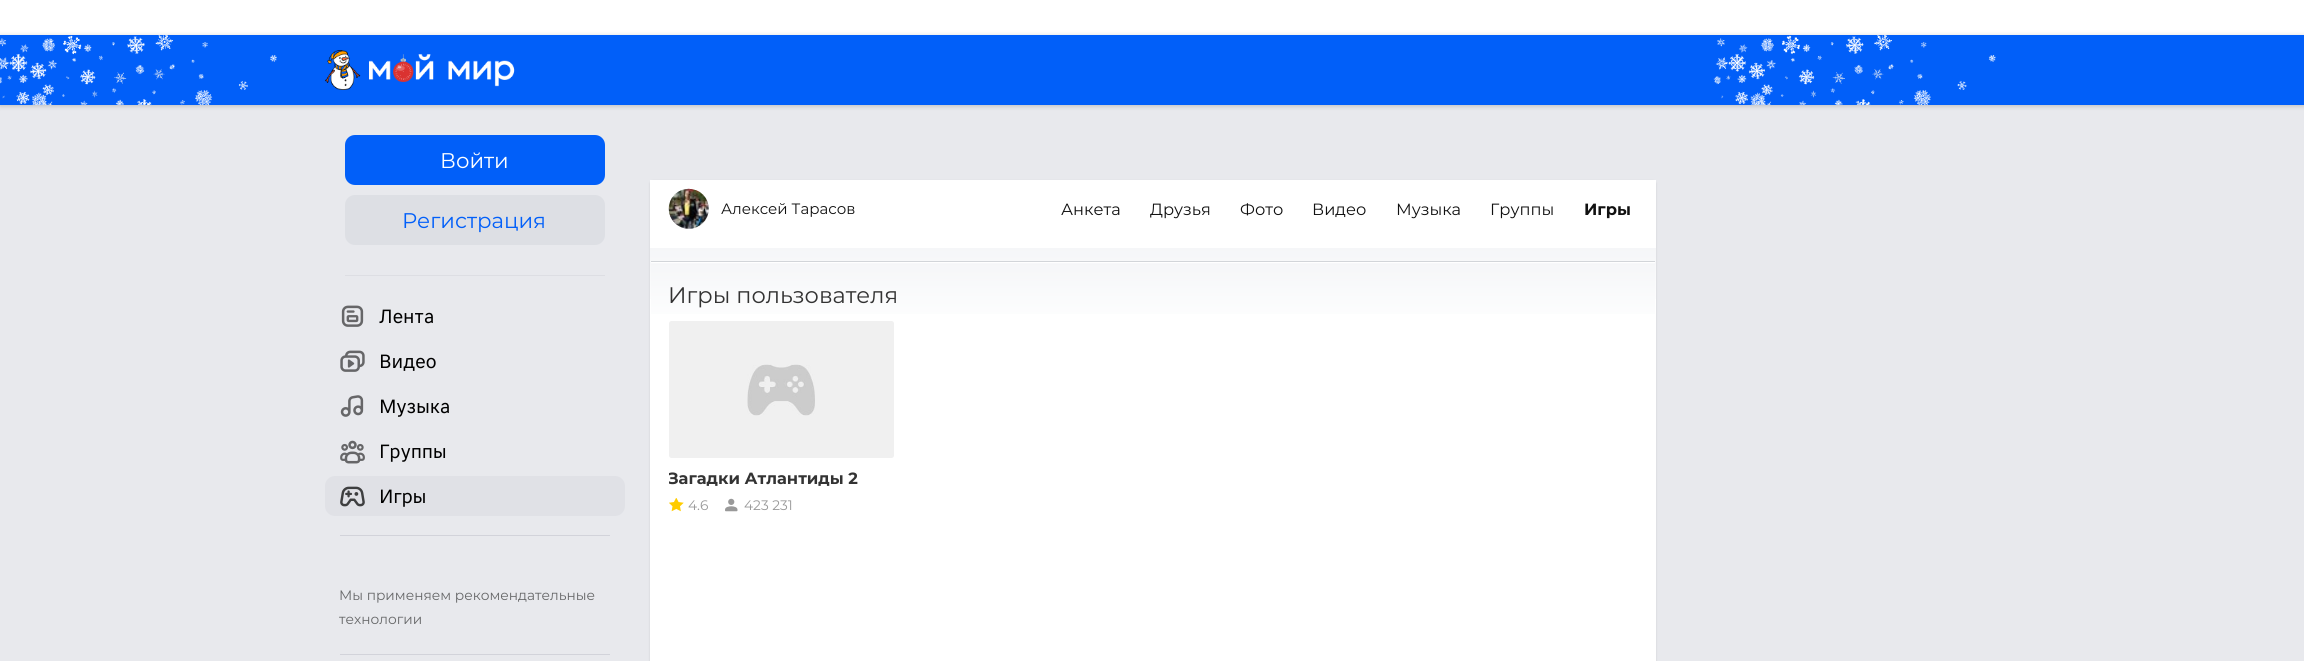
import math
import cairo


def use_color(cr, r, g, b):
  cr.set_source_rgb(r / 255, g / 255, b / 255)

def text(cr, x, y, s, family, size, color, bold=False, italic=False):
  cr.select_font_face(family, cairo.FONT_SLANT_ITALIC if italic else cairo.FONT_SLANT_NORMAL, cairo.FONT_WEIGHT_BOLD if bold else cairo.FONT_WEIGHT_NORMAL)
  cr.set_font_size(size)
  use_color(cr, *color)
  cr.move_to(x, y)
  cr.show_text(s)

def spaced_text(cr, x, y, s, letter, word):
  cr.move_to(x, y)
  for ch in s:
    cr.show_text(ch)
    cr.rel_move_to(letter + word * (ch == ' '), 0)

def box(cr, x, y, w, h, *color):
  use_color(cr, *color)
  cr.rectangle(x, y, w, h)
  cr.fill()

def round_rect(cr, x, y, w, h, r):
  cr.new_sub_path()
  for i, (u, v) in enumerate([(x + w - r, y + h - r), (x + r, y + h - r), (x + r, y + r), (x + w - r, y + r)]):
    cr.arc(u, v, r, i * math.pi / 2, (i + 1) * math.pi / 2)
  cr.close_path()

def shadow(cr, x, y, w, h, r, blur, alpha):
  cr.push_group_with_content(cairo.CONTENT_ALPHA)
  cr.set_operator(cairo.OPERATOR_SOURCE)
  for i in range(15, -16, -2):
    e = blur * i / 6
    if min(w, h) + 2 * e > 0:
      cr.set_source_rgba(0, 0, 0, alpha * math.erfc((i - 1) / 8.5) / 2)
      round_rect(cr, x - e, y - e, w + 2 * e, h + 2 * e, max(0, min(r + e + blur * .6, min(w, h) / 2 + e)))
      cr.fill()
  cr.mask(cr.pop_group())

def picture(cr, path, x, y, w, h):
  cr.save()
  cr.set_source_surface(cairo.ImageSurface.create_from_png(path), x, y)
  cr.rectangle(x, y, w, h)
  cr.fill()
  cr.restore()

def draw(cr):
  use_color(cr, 232, 233, 237)
  cr.paint()
  box(cr, 0, 0, 2304, 35, 255, 255, 255)
  use_color(cr, 0, 0, 0)
  shadow(cr, 0, 36, 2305, 70, 0, 2.5, 0.2)
  box(cr, 0, 35, 2304, 70, 1, 95, 249)
  picture(cr, "img_01.png", 0, 35, 277, 70)
  picture(cr, "img_02.png", 325, 50, 190, 40)
  picture(cr, "img_03.png", 1713, 35, 283, 70)
  round_rect(cr, 345, 135, 260, 50, 10)
  cr.fill()
  use_color(cr, 221, 223, 228)
  round_rect(cr, 345, 195, 260, 50, 10)
  cr.fill()
  box(cr, 345, 275, 260, 1, 221, 222, 227)
  picture(cr, "img_04.png", 341, 305, 23, 22)
  picture(cr, "img_05.png", 340, 350, 25, 22)
  picture(cr, "img_06.png", 340, 395, 24, 22)
  picture(cr, "img_07.png", 340, 440, 25, 24)
  use_color(cr, 224, 225, 230)
  round_rect(cr, 325, 476, 300, 40, 10)
  cr.fill()
  picture(cr, "img_08.png", 340, 486, 25, 21)
  box(cr, 340, 535, 270, 1, 210, 211, 218)
  box(cr, 340, 654, 270, 1, 210, 211, 218)
  use_color(cr, 0, 0, 0)
  shadow(cr, 650, 181, 1006, 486, 2.5, 1, 0.12)
  box(cr, 650, 235, 1006, 426, 255, 255, 255)
  cr.new_path()
  cr.move_to(650, 180)
  cr.line_to(1656, 180)
  cr.line_to(1656, 235.5)
  cr.curve_to(1656, 237, 1655, 238, 1653.5, 238)
  cr.line_to(652.5, 238)
  cr.curve_to(651, 238, 650, 237, 650, 235.5)
  cr.close_path()
  cr.fill()
  use_color(cr, 240, 240, 240)
  cr.arc(689, 209, 20, 0, 2 * math.pi)
  cr.fill()
  picture(cr, "img_09.png", 668, 188, 41, 41)
  gradient = cairo.LinearGradient(1153, 247, 1153, 316)
  gradient.add_color_stop_rgba(0, 0.961, 0.965, 0.973, 1)
  gradient.add_color_stop_rgba(1, 1, 1, 1, 1)
  cr.set_source(gradient)
  cr.rectangle(650, 248, 1006, 51)
  cr.fill()
  gradient = cairo.LinearGradient(1153, 194, 1153, 263)
  gradient.add_color_stop_rgba(0, 0.961, 0.965, 0.973, 1)
  gradient.add_color_stop_rgba(1, 1, 1, 1, 1)
  cr.set_source(gradient)
  cr.rectangle(651, 262, 1004, 1)
  cr.fill()
  gradient = cairo.LinearGradient(1153, 262, 1153, 331)
  gradient.add_color_stop_rgba(0, 0.961, 0.965, 0.973, 1)
  gradient.add_color_stop_rgba(1, 1, 1, 1, 1)
  cr.set_source(gradient)
  cr.rectangle(651, 264, 1004, 50)
  cr.fill()
  box(cr, 651, 261, 1004, 1, 210, 213, 217)
  use_color(cr, 240, 240, 240)
  round_rect(cr, 669, 321, 225, 137, 2.5)
  cr.fill()
  picture(cr, "img_10.png", 747, 364, 68, 52)
  picture(cr, "img_11.png", 669, 498, 15, 14)
  picture(cr, "img_12.png", 725, 498, 13, 14)
  text(cr, 440, 168, "Войти", "Montserrat", 21.25, (255, 255, 255))
  text(cr, 402, 228, "Регистрация", "Montserrat", 21.25, (1, 95, 249))
  cr.select_font_face("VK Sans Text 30")
  cr.set_font_size(19)
  use_color(cr, 0, 0, 0)
  spaced_text(cr, 379, 323, "Лента", -0.25, 0)
  spaced_text(cr, 379, 368, "Видео", -0.25, 0)
  spaced_text(cr, 379, 413, "Музыка", -0.25, 0)
  spaced_text(cr, 379, 458, "Группы", -0.25, 0)
  spaced_text(cr, 379, 503, "Игры", -0.25, 0)
  text(cr, 339, 600, "Мы применяем рекомендательные", "Montserrat", 13.75, (102, 103, 104))
  text(cr, 339, 624, "технологии", "Montserrat", 13.75, (102, 103, 104))
  text(cr, 721, 214, "Алексей Тарасов", "Montserrat", 15, (17, 17, 17))
  text(cr, 1061, 215, "Анкета", "Montserrat", 16.25, (17, 17, 17))
  text(cr, 1150, 215, "Друзья", "Montserrat", 16.25, (17, 17, 17))
  text(cr, 1240, 215, "Фото", "Montserrat", 16.25, (17, 17, 17))
  text(cr, 1312, 215, "Видео", "Montserrat", 16.25, (17, 17, 17))
  text(cr, 1396, 215, "Музыка", "Montserrat", 16.25, (17, 17, 17))
  text(cr, 1490, 215, "Группы", "Montserrat", 16.25, (17, 17, 17))
  text(cr, 1584, 215, "Игры", "Montserrat", 16.25, (17, 17, 17), bold=True)
  text(cr, 668, 303, "Игры пользователя", "Montserrat", 22.5, (51, 51, 51))
  cr.save()
  cr.rectangle(669, 468, 225, 20)
  cr.clip()
  text(cr, 668, 484, "Загадки Атлантиды 2", "Montserrat", 16.25, (51, 51, 51), bold=True)
  cr.restore()
  text(cr, 688, 510, "4.6", "Montserrat", 13.75, (153, 153, 153))
  text(cr, 744, 510, "423 231", "Montserrat", 13.75, (153, 153, 153))


surface = cairo.ImageSurface(cairo.FORMAT_RGB24, 2304, 661)
cr = cairo.Context(surface)
options = cairo.FontOptions()
options.set_hint_metrics(cairo.HINT_METRICS_OFF)
options.set_hint_style(cairo.HINT_STYLE_NONE)
cr.set_font_options(options)
cr.set_miter_limit(4)
draw(cr)
surface.write_to_png("out.png")
